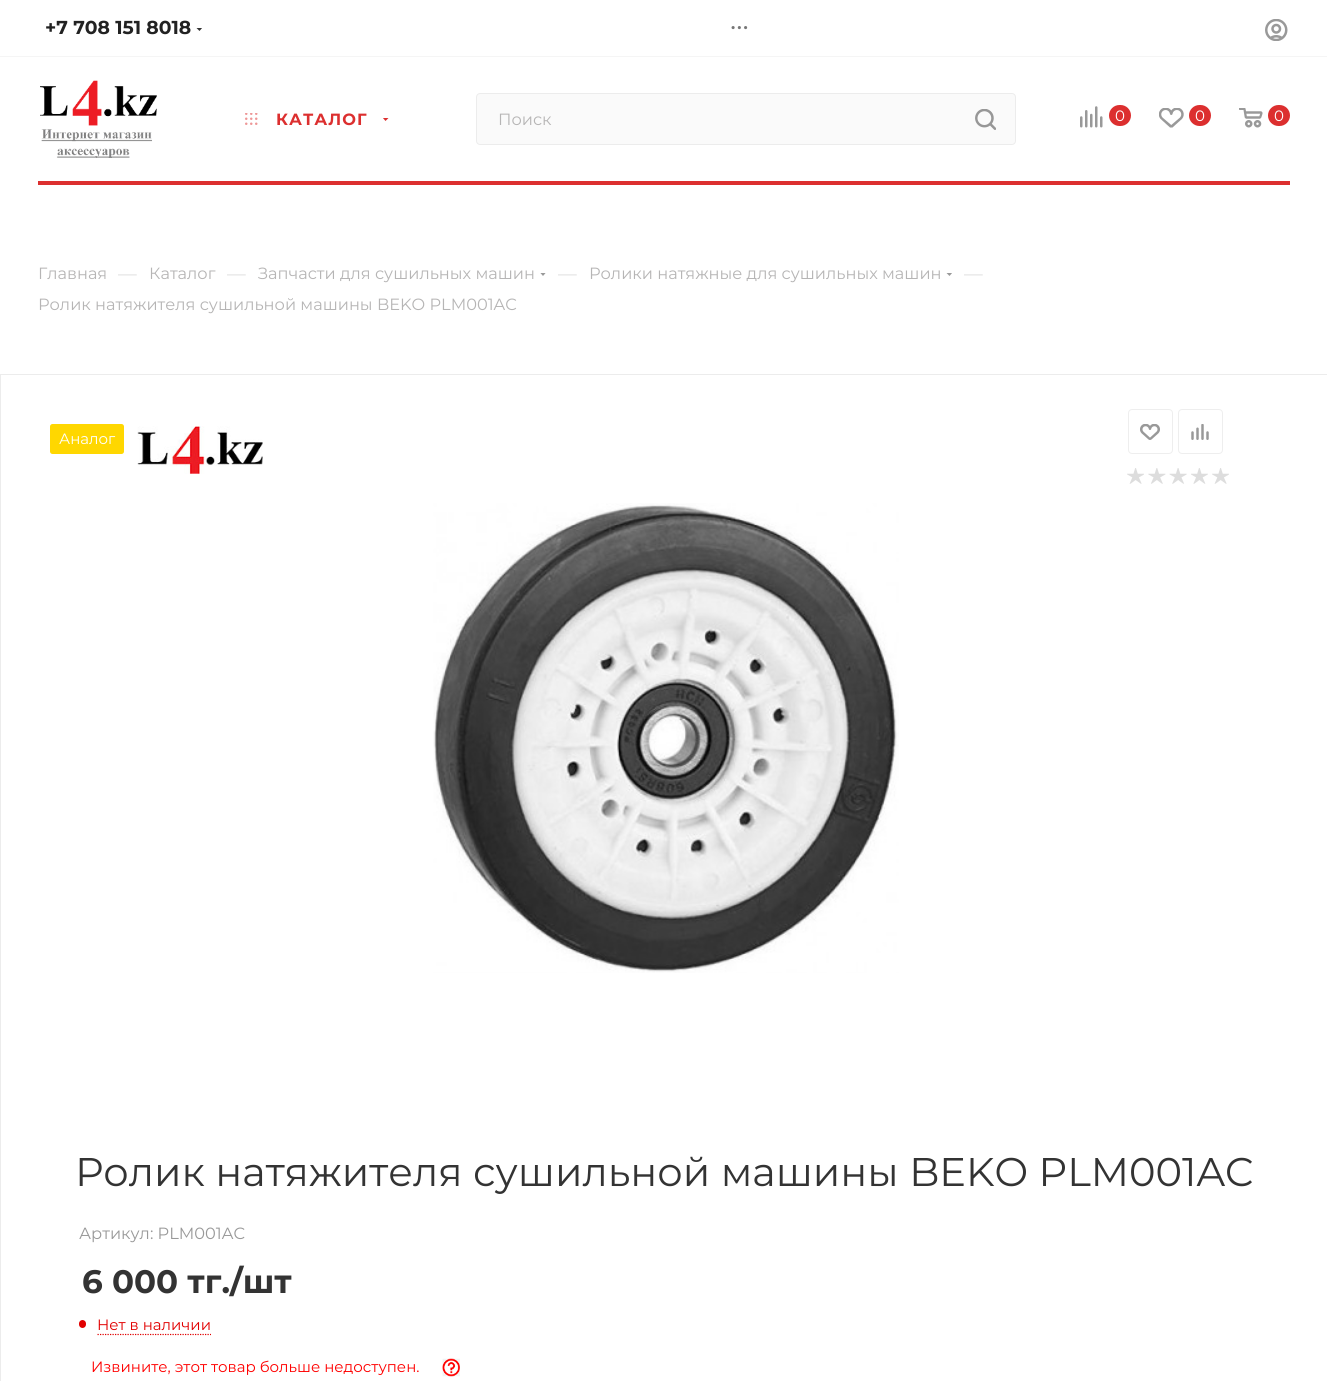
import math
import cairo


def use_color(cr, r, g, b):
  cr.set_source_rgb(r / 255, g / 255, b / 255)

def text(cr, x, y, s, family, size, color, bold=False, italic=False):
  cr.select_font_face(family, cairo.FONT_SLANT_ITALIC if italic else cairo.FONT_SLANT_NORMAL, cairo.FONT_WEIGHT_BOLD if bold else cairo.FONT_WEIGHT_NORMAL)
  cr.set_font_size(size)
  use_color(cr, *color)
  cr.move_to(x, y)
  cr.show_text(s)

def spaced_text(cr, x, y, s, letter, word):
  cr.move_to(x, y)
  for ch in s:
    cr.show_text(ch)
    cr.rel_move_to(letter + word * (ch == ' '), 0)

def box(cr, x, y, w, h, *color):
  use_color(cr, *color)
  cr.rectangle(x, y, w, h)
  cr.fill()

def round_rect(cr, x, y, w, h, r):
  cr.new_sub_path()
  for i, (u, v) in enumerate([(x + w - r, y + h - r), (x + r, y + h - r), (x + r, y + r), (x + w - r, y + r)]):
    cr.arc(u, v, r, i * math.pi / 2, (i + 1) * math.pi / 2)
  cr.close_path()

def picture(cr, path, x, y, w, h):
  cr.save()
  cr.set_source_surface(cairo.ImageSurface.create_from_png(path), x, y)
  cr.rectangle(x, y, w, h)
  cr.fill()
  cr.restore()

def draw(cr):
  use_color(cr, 255, 255, 255)
  cr.paint()
  box(cr, 0, 56, 1327, 1, 245, 245, 245)
  cr.save()
  cr.rectangle(196, 28, 7, 4)
  cr.clip()
  use_color(cr, 51, 51, 51)
  cr.set_fill_rule(cairo.FILL_RULE_EVEN_ODD)
  cr.new_path()
  cr.move_to(196, 27.5)
  cr.line_to(202.5, 27.5)
  cr.line_to(199.5, 31)
  cr.close_path()
  cr.fill()
  cr.restore()
  picture(cr, "img_01.png", 1265, 19, 23, 22)
  picture(cr, "img_02.png", 40, 80, 117, 78)
  picture(cr, "img_03.png", 245, 113, 13, 12)
  cr.save()
  cr.rectangle(383, 118, 6, 4)
  cr.clip()
  use_color(cr, 220, 47, 47)
  cr.set_fill_rule(cairo.FILL_RULE_EVEN_ODD)
  cr.new_path()
  cr.move_to(382.5, 117.5)
  cr.line_to(389, 117.5)
  cr.line_to(385.5, 121)
  cr.close_path()
  cr.fill()
  cr.restore()
  use_color(cr, 250, 250, 250)
  round_rect(cr, 476.5, 93.5, 539, 51, 3.5)
  cr.fill_preserve()
  use_color(cr, 236, 236, 236)
  cr.set_line_width(1)
  cr.stroke()
  picture(cr, "img_04.png", 975, 109, 21, 21)
  picture(cr, "img_05.png", 1080, 106, 23, 22)
  use_color(cr, 220, 47, 47)
  round_rect(cr, 1109, 105, 22, 21, 10.5)
  cr.fill()
  picture(cr, "img_06.png", 1159, 108, 25, 20)
  round_rect(cr, 1189, 105, 22, 21, 10.5)
  cr.fill()
  picture(cr, "img_07.png", 1239, 108, 24, 20)
  round_rect(cr, 1268, 105, 22, 21, 10.5)
  cr.fill()
  box(cr, 38, 181, 1252, 4, 220, 47, 47)
  cr.save()
  cr.rectangle(540, 273, 6, 4)
  cr.clip()
  use_color(cr, 153, 153, 153)
  cr.set_fill_rule(cairo.FILL_RULE_EVEN_ODD)
  cr.new_path()
  cr.move_to(540, 272.5)
  cr.line_to(546, 272.5)
  cr.line_to(543, 276)
  cr.close_path()
  cr.fill()
  cr.restore()
  cr.save()
  cr.rectangle(946, 273, 7, 4)
  cr.clip()
  use_color(cr, 153, 153, 153)
  cr.set_fill_rule(cairo.FILL_RULE_EVEN_ODD)
  cr.new_path()
  cr.move_to(946, 272.5)
  cr.line_to(952.5, 272.5)
  cr.line_to(949.5, 276)
  cr.close_path()
  cr.fill()
  cr.restore()
  cr.rectangle(0.5, 374.5, 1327, 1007)
  use_color(cr, 236, 236, 236)
  cr.stroke()
  use_color(cr, 255, 215, 0)
  round_rect(cr, 50, 424, 74, 30, 2.5)
  cr.fill()
  picture(cr, "img_08.png", 137, 426, 126, 48)
  round_rect(cr, 1128.5, 409.5, 44, 44, 3.5)
  use_color(cr, 238, 238, 238)
  cr.stroke()
  picture(cr, "img_09.png", 1140, 424, 20, 16)
  round_rect(cr, 1178.5, 409.5, 44, 44, 3.5)
  cr.stroke()
  picture(cr, "img_10.png", 1191, 424, 18, 16)
  picture(cr, "img_11.png", 1127, 468, 17, 16)
  picture(cr, "img_12.png", 1148, 468, 18, 16)
  picture(cr, "img_13.png", 1169, 468, 18, 16)
  picture(cr, "img_14.png", 1191, 468, 17, 16)
  picture(cr, "img_11.png", 1212, 468, 17, 16)
  picture(cr, "img_15.png", 433, 503, 466, 470)
  use_color(cr, 225, 0, 0)
  round_rect(cr, 79, 1320, 7, 8, 3.5)
  cr.fill()
  cr.new_path()
  cr.move_to(97.5, 1334.5)
  cr.line_to(211, 1334.5)
  cr.set_line_width(1.2)
  cr.set_dash([1.25, 1.25])
  cr.stroke()
  picture(cr, "img_16.png", 442, 1358, 18, 19)
  text(cr, 45, 34, "+7 708 151 8018", "Montserrat", 18.75, (34, 34, 34), bold=True)
  cr.set_font_size(16)
  use_color(cr, 119, 119, 119)
  spaced_text(cr, 731, 29, "...", 2, 0)
  cr.set_font_size(16.25)
  use_color(cr, 220, 47, 47)
  spaced_text(cr, 276, 125, "КАТАЛОГ", 1, 0)
  text(cr, 498, 125, "Поиск", "Montserrat", 16.25, (182, 181, 181))
  text(cr, 1115, 121, "0", "Montserrat", 15, (255, 255, 255))
  text(cr, 1195, 121, "0", "Montserrat", 15, (255, 255, 255))
  text(cr, 1274, 121, "0", "Montserrat", 15, (255, 255, 255))
  text(cr, 38, 279, "Главная", "Montserrat", 16.25, (182, 181, 181))
  text(cr, 118, 280, "—", "Montserrat", 18.75, (221, 221, 221))
  text(cr, 149, 279, "Каталог", "Montserrat", 16.25, (182, 181, 181))
  text(cr, 227, 280, "—", "Montserrat", 18.75, (221, 221, 221))
  text(cr, 258, 279, "Запчасти для сушильных машин", "Montserrat", 16.25, (182, 181, 181))
  text(cr, 558, 280, "—", "Montserrat", 18.75, (221, 221, 221))
  text(cr, 589, 279, "Ролики натяжные для сушильных машин", "Montserrat", 16.25, (182, 181, 181))
  text(cr, 964, 280, "—", "Montserrat", 18.75, (221, 221, 221))
  text(cr, 38, 310, "Ролик натяжителя сушильной машины BEKO PLM001AC", "Montserrat", 16.25, (182, 181, 181))
  text(cr, 59, 444, "Аналог", "Montserrat", 15, (255, 255, 255))
  text(cr, 75, 1186, "Ролик натяжителя сушильной машины BEKO PLM001AC", "Montserrat", 40, (51, 51, 51))
  text(cr, 79, 1239, "Артикул: PLM001AC", "Montserrat", 16.25, (153, 153, 153))
  text(cr, 82, 1293, "6 000 тг./шт", "Montserrat", 32.5, (51, 51, 51), bold=True)
  text(cr, 97, 1330, "Нет в наличии", "Montserrat", 15, (225, 0, 0))
  text(cr, 91, 1372, "Извините, этот товар больше недоступен.", "Montserrat", 15, (255, 0, 0))


surface = cairo.ImageSurface(cairo.FORMAT_RGB24, 1327, 1381)
cr = cairo.Context(surface)
options = cairo.FontOptions()
options.set_hint_metrics(cairo.HINT_METRICS_OFF)
options.set_hint_style(cairo.HINT_STYLE_NONE)
cr.set_font_options(options)
cr.set_miter_limit(4)
draw(cr)
surface.write_to_png("out.png")
